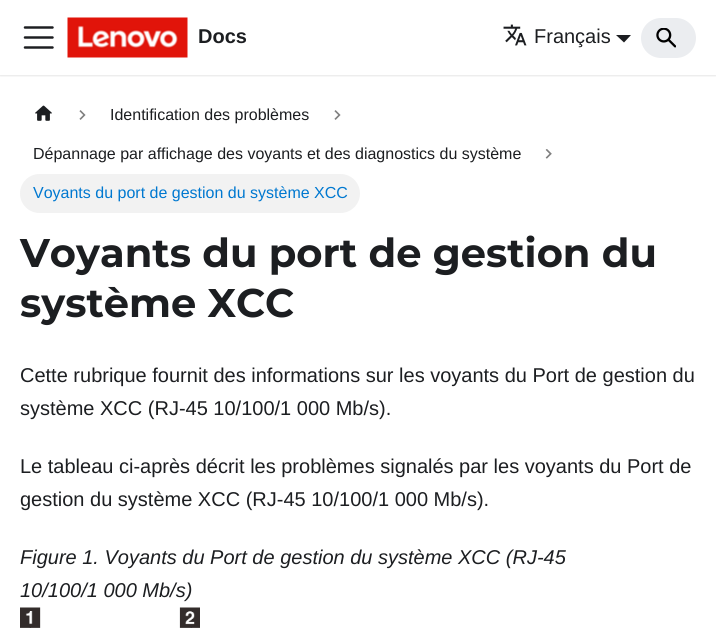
import math
import cairo


def use_color(cr, r, g, b):
  cr.set_source_rgb(r / 255, g / 255, b / 255)

def text(cr, x, y, s, family, size, color, bold=False, italic=False):
  cr.select_font_face(family, cairo.FONT_SLANT_ITALIC if italic else cairo.FONT_SLANT_NORMAL, cairo.FONT_WEIGHT_BOLD if bold else cairo.FONT_WEIGHT_NORMAL)
  cr.set_font_size(size)
  use_color(cr, *color)
  cr.move_to(x, y)
  cr.show_text(s)

def round_rect(cr, x, y, w, h, r):
  cr.new_sub_path()
  for i, (u, v) in enumerate([(x + w - r, y + h - r), (x + r, y + h - r), (x + r, y + r), (x + w - r, y + r)]):
    cr.arc(u, v, r, i * math.pi / 2, (i + 1) * math.pi / 2)
  cr.close_path()

def shadow(cr, x, y, w, h, r, blur, alpha):
  cr.push_group_with_content(cairo.CONTENT_ALPHA)
  cr.set_operator(cairo.OPERATOR_SOURCE)
  for i in range(15, -16, -2):
    e = blur * i / 6
    if min(w, h) + 2 * e > 0:
      cr.set_source_rgba(0, 0, 0, alpha * math.erfc((i - 1) / 8.5) / 2)
      round_rect(cr, x - e, y - e, w + 2 * e, h + 2 * e, max(0, min(r + e + blur * .6, min(w, h) / 2 + e)))
      cr.fill()
  cr.mask(cr.pop_group())

def picture(cr, path, x, y, w, h):
  cr.save()
  cr.set_source_surface(cairo.ImageSurface.create_from_png(path), x, y)
  cr.rectangle(x, y, w, h)
  cr.fill()
  cr.restore()

def draw(cr):
  use_color(cr, 255, 255, 255)
  cr.paint()
  cr.save()
  cr.rectangle(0, 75, 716, 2)
  cr.clip()
  use_color(cr, 0, 0, 0)
  shadow(cr, 0, 1, 716, 75, 0, 1, 0.1)
  cr.restore()
  cr.new_path()
  cr.move_to(25, 27.5)
  cr.line_to(52.5, 27.5)
  cr.move_to(25, 37.5)
  cr.line_to(52.5, 37.5)
  cr.move_to(25, 47.5)
  cr.line_to(52.5, 47.5)
  use_color(cr, 28, 30, 33)
  cr.set_line_width(2.5)
  cr.set_line_cap(cairo.LINE_CAP_ROUND)
  cr.stroke()
  picture(cr, "img_01.png", 67, 17, 121, 41)
  picture(cr, "img_02.png", 503, 24, 24, 22)
  cr.new_path()
  cr.move_to(616, 35)
  cr.line_to(631, 35)
  cr.line_to(624, 42.5)
  cr.close_path()
  cr.fill()
  use_color(cr, 235, 237, 240)
  round_rect(cr, 641, 18, 55, 40, 20)
  cr.fill()
  picture(cr, "img_03.png", 656, 28, 20, 20)
  picture(cr, "img_04.png", 35, 105, 17, 16)
  picture(cr, "img_05.png", 79, 110, 7, 10)
  picture(cr, "img_05.png", 334, 110, 7, 10)
  picture(cr, "img_06.png", 545, 149, 7, 10)
  use_color(cr, 242, 242, 242)
  round_rect(cr, 20, 174, 340, 39, 19.5)
  cr.fill()
  picture(cr, "img_07.png", 20, 607, 180, 21)
  text(cr, 198, 43, "Docs", "Liberation Sans", 20, (28, 30, 33), bold=True)
  text(cr, 534, 43, "Français", "Liberation Sans", 20, (28, 30, 33))
  text(cr, 110, 120, "Identification des problèmes", "Liberation Sans", 16, (28, 30, 33))
  text(cr, 33, 159, "Dépannage par affichage des voyants et des diagnostics du système", "Liberation Sans", 16, (28, 30, 33))
  text(cr, 33, 198, "Voyants du port de gestion du système XCC", "Liberation Sans", 16, (0, 120, 208))
  text(cr, 20, 267, "Voyants du port de gestion du", "Montserrat", 40, (28, 30, 33), bold=True)
  text(cr, 20, 317, "système XCC", "Montserrat", 40, (28, 30, 33), bold=True)
  text(cr, 20, 382, "Cette rubrique fournit des informations sur les voyants du Port de gestion du", "Liberation Sans", 20, (28, 30, 33))
  text(cr, 20, 415, "système XCC (RJ-45 10/100/1 000 Mb/s).", "Liberation Sans", 20, (28, 30, 33))
  text(cr, 20, 473, "Le tableau ci-après décrit les problèmes signalés par les voyants du Port de", "Liberation Sans", 20, (28, 30, 33))
  text(cr, 20, 506, "gestion du système XCC (RJ-45 10/100/1 000 Mb/s).", "Liberation Sans", 20, (28, 30, 33))
  text(cr, 20, 564, "Figure 1. Voyants du Port de gestion du système XCC (RJ-45", "Liberation Sans", 20, (28, 30, 33), italic=True)
  text(cr, 20, 597, "10/100/1 000 Mb/s)", "Liberation Sans", 20, (28, 30, 33), italic=True)


surface = cairo.ImageSurface(cairo.FORMAT_RGB24, 716, 628)
cr = cairo.Context(surface)
options = cairo.FontOptions()
options.set_hint_metrics(cairo.HINT_METRICS_OFF)
options.set_hint_style(cairo.HINT_STYLE_NONE)
cr.set_font_options(options)
cr.set_miter_limit(4)
draw(cr)
surface.write_to_png("out.png")
